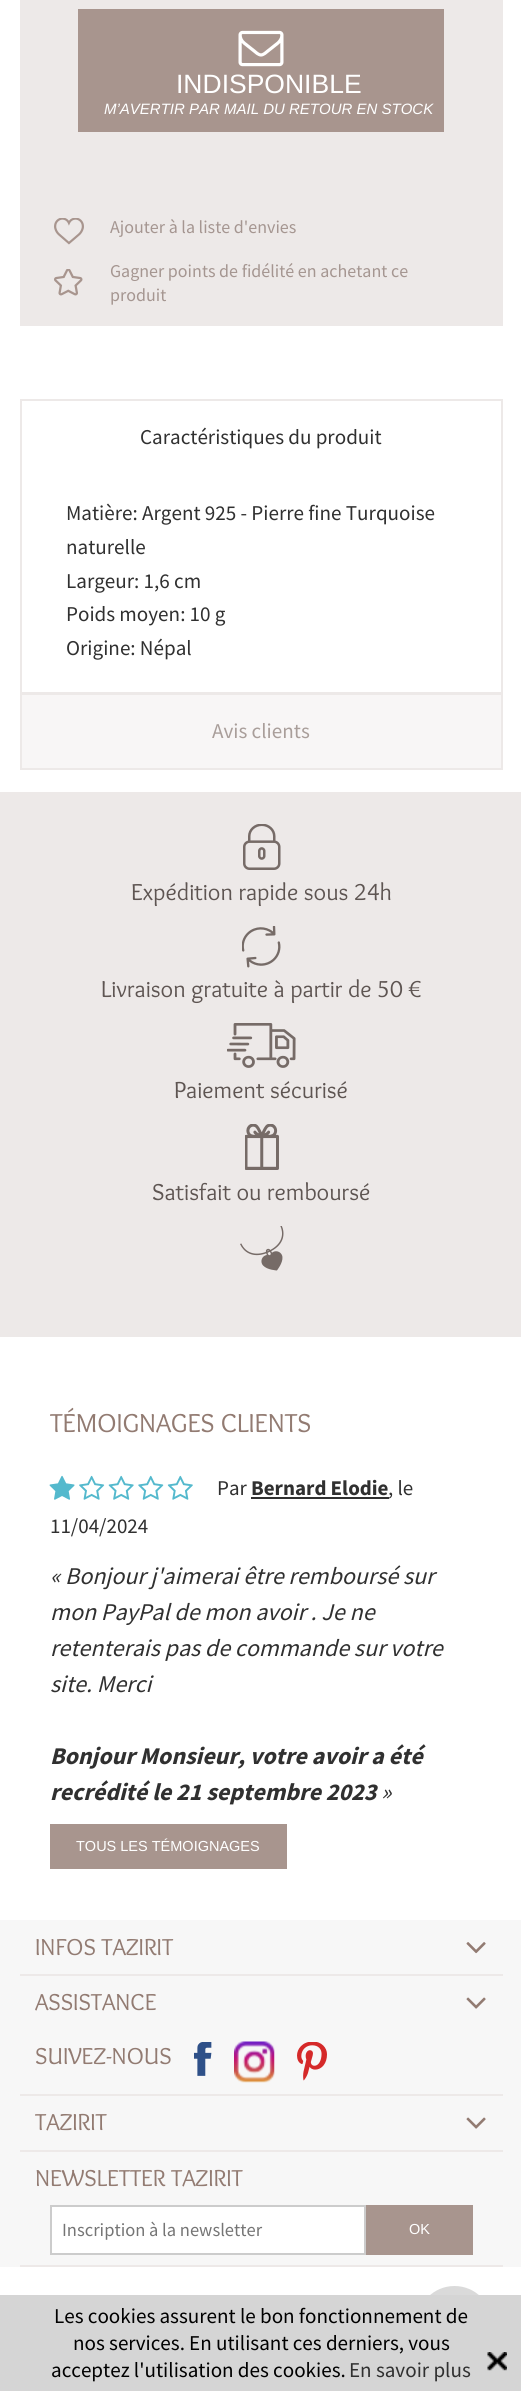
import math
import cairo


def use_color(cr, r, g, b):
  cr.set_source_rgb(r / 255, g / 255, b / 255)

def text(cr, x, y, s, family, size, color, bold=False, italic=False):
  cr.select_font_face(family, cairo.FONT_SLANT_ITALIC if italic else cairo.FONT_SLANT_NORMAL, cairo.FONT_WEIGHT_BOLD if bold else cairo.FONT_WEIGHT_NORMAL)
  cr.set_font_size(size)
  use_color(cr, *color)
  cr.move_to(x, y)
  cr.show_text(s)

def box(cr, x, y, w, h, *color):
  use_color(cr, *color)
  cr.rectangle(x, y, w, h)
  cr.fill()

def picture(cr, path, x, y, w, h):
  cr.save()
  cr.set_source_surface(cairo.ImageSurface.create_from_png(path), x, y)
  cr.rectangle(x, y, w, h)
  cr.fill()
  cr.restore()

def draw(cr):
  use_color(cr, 255, 255, 255)
  cr.paint()
  box(cr, 20, 0, 483, 326, 237, 233, 232)
  box(cr, 78, 9, 366, 123, 168, 149, 142)
  picture(cr, "img_01.png", 238, 30, 46, 37)
  picture(cr, "img_02.png", 54, 218, 30, 27)
  picture(cr, "img_03.png", 54, 269, 29, 27)
  box(cr, 20, 399, 483, 2, 237, 233, 232)
  box(cr, 501, 399, 2, 294, 237, 233, 232)
  box(cr, 20, 399, 2, 77, 237, 233, 232)
  box(cr, 20, 692, 483, 1, 237, 233, 232)
  box(cr, 20, 476, 2, 217, 237, 233, 232)
  use_color(cr, 248, 246, 246)
  cr.rectangle(21, 694, 481, 75)
  cr.fill_preserve()
  use_color(cr, 237, 233, 232)
  cr.stroke()
  box(cr, 0, 792, 521, 545, 237, 233, 232)
  picture(cr, "img_04.png", 243, 824, 38, 46)
  picture(cr, "img_05.png", 242, 926, 39, 42)
  picture(cr, "img_06.png", 227, 1023, 69, 45)
  picture(cr, "img_07.png", 245, 1124, 34, 46)
  picture(cr, "img_08.png", 240, 1226, 44, 45)
  picture(cr, "img_09.png", 49, 1475, 144, 25)
  box(cr, 251, 1497, 138, 2, 48, 48, 48)
  box(cr, 50, 1824, 237, 45, 168, 149, 142)
  box(cr, 0, 1920, 521, 347, 247, 247, 247)
  box(cr, 20, 1974, 483, 2, 237, 233, 232)
  picture(cr, "img_10.png", 466, 1942, 20, 12)
  box(cr, 20, 2094, 483, 2, 237, 233, 232)
  picture(cr, "img_11.png", 466, 1997, 20, 12)
  picture(cr, "img_12.png", 194, 2042, 18, 34)
  picture(cr, "img_13.png", 234, 2041, 41, 42)
  picture(cr, "img_14.png", 297, 2042, 30, 39)
  box(cr, 20, 2150, 483, 2, 237, 233, 232)
  picture(cr, "img_11.png", 466, 2117, 20, 12)
  box(cr, 20, 2265, 483, 2, 237, 233, 232)
  use_color(cr, 255, 255, 255)
  cr.rectangle(51, 2206, 314, 48)
  cr.fill_preserve()
  use_color(cr, 204, 204, 204)
  cr.stroke()
  box(cr, 366, 2205, 107, 50, 168, 149, 142)
  cr.set_source_rgba(0.796, 0.796, 0.796, 0.7)
  cr.arc(454.5, 2323.5, 37.5, 0, 2 * math.pi)
  cr.fill()
  box(cr, 0, 2295, 521, 96, 213, 213, 213)
  picture(cr, "img_15.png", 487, 2352, 20, 19)
  text(cr, 176, 93, "INDISPONIBLE", "Liberation Sans", 26.5, (255, 255, 255))
  text(cr, 104, 114, "M’AVERTIR PAR MAIL DU RETOUR EN STOCK", "Liberation Sans", 15, (255, 255, 255), italic=True)
  text(cr, 110, 233, "Ajouter à la liste d'envies", "Source Sans Pro", 18, (165, 150, 145))
  text(cr, 110, 277, "Gagner points de fidélité en achetant ce", "Source Sans Pro", 18, (165, 150, 145))
  text(cr, 110, 301, "produit", "Source Sans Pro", 18, (165, 150, 145))
  text(cr, 140, 444, "Caractéristiques du produit", "Source Sans Pro", 21.1, (48, 48, 48))
  text(cr, 66, 520, "Matière: Argent 925 - Pierre fine Turquoise", "Source Sans Pro", 21.1, (48, 48, 48))
  text(cr, 66, 554, "naturelle", "Source Sans Pro", 21.1, (48, 48, 48))
  text(cr, 66, 588, "Largeur: 1,6 cm", "Source Sans Pro", 21.1, (48, 48, 48))
  text(cr, 66, 621, "Poids moyen: 10 g", "Source Sans Pro", 21.1, (48, 48, 48))
  text(cr, 66, 655, "Origine: Népal", "Source Sans Pro", 21.1, (48, 48, 48))
  text(cr, 212, 738, "Avis clients", "Source Sans Pro", 21.1, (169, 158, 154))
  text(cr, 131, 900, "Expédition rapide sous 24h", "Overlock", 24, (94, 85, 82))
  text(cr, 101, 997, "Livraison gratuite à partir de 50 €", "Overlock", 24, (94, 85, 82))
  text(cr, 174, 1098, "Paiement sécurisé", "Overlock", 24, (94, 85, 82))
  text(cr, 152, 1200, "Satisfait ou remboursé", "Overlock", 24, (94, 85, 82))
  text(cr, 50, 1432, "TÉMOIGNAGES CLIENTS", "Overlock", 27, (146, 123, 114))
  text(cr, 217, 1495, "Par", "Source Sans Pro", 21, (48, 48, 48))
  text(cr, 251, 1495, "Bernard Elodie", "Source Sans Pro", 21, (48, 48, 48), bold=True)
  text(cr, 388, 1495, ", le", "Source Sans Pro", 21, (48, 48, 48))
  text(cr, 50, 1533, "11/04/2024", "Source Sans Pro", 21, (48, 48, 48))
  text(cr, 50, 1584, "« Bonjour j'aimerai être remboursé sur", "Source Sans Pro", 24, (48, 48, 48), italic=True)
  text(cr, 50, 1620, "mon PayPal de mon avoir . Je ne", "Source Sans Pro", 24, (48, 48, 48), italic=True)
  text(cr, 50, 1656, "retenterais pas de commande sur votre", "Source Sans Pro", 24, (48, 48, 48), italic=True)
  text(cr, 50, 1692, "site. Merci", "Source Sans Pro", 24, (48, 48, 48), italic=True)
  text(cr, 50, 1764, "Bonjour Monsieur, votre avoir a été", "Source Sans Pro", 24, (48, 48, 48), bold=True, italic=True)
  text(cr, 50, 1800, "recrédité le 21 septembre 2023", "Source Sans Pro", 24, (48, 48, 48), bold=True, italic=True)
  text(cr, 381, 1800, "»", "Source Sans Pro", 24, (48, 48, 48), italic=True)
  text(cr, 76, 1851, "TOUS LES TÉMOIGNAGES", "Liberation Sans", 14.5, (255, 255, 255))
  text(cr, 35, 1955, "INFOS TAZIRIT", "Overlock", 24, (146, 123, 114))
  text(cr, 35, 2010, "ASSISTANCE", "Overlock", 24, (146, 123, 114))
  text(cr, 35, 2064, "SUIVEZ-NOUS", "Overlock", 24, (146, 123, 114))
  text(cr, 35, 2130, "TAZIRIT", "Overlock", 24, (146, 123, 114))
  text(cr, 35, 2186, "NEWSLETTER TAZIRIT", "Overlock", 24, (146, 123, 114))
  text(cr, 62, 2236, "Inscription à la newsletter", "Source Sans Pro", 18.5, (117, 117, 117))
  text(cr, 409, 2234, "OK", "Liberation Sans", 14.5, (255, 255, 255))
  text(cr, 54, 2323, "Les cookies assurent le bon fonctionnement de", "Source Sans Pro", 21.1, (0, 0, 0))
  text(cr, 73, 2350, "nos services. En utilisant ces derniers, vous", "Source Sans Pro", 21.1, (0, 0, 0))
  text(cr, 51, 2377, "acceptez l'utilisation des cookies.", "Source Sans Pro", 21.1, (0, 0, 0))
  text(cr, 349, 2377, "En savoir plus", "Source Sans Pro", 21.1, (48, 48, 48))


surface = cairo.ImageSurface(cairo.FORMAT_RGB24, 521, 2391)
cr = cairo.Context(surface)
options = cairo.FontOptions()
options.set_hint_metrics(cairo.HINT_METRICS_OFF)
options.set_hint_style(cairo.HINT_STYLE_NONE)
cr.set_font_options(options)
cr.set_miter_limit(4)
draw(cr)
surface.write_to_png("out.png")
